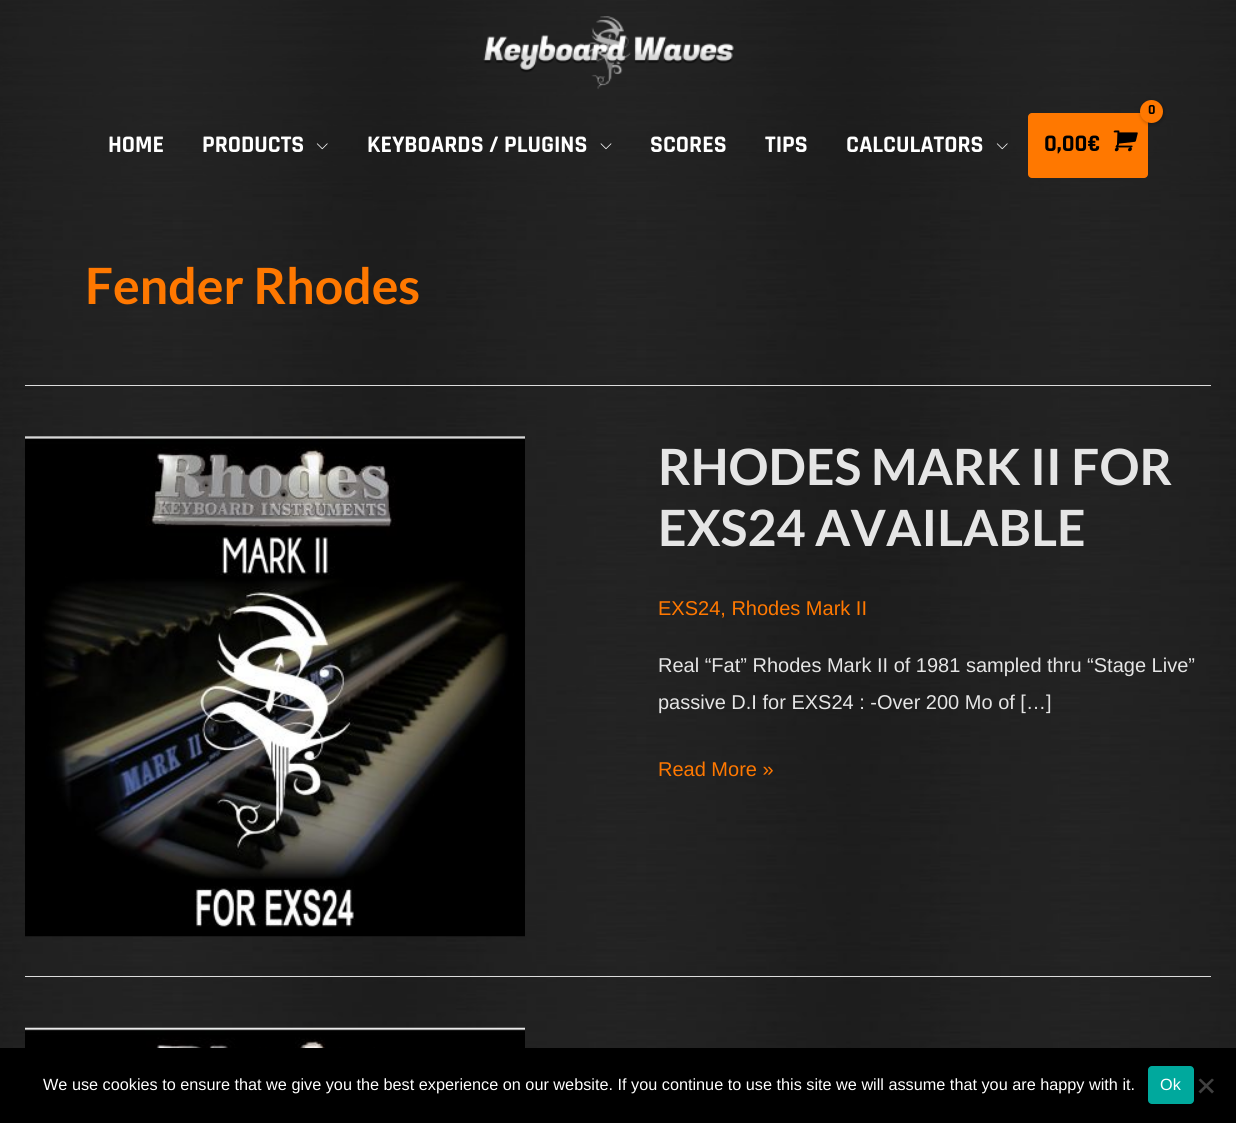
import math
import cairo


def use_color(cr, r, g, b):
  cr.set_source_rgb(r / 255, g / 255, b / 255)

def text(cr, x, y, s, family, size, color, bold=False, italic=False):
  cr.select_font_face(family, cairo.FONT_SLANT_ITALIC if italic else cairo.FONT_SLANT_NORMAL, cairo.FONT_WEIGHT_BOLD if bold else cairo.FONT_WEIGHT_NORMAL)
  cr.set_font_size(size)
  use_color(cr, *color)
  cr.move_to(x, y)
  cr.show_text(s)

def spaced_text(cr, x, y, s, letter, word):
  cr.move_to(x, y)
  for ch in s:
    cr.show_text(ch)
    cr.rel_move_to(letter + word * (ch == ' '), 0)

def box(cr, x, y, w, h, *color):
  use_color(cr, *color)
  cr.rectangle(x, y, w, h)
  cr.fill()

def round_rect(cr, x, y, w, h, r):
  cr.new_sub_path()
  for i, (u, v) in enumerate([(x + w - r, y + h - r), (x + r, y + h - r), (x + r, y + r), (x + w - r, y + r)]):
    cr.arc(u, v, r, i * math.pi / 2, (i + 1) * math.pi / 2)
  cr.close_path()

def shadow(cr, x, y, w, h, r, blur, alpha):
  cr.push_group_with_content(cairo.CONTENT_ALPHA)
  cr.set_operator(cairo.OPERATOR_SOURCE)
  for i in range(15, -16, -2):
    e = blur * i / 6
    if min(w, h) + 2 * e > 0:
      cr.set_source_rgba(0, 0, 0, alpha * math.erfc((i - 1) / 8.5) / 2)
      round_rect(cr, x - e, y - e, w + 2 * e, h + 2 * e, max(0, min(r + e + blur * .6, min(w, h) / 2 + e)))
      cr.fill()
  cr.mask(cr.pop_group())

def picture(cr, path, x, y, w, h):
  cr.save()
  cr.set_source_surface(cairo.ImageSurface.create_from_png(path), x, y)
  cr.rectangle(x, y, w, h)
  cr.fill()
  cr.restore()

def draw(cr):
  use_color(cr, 255, 255, 255)
  cr.paint()
  picture(cr, "img_01.png", 0, 190, 1236, 858)
  picture(cr, "img_02.png", 0, 0, 1236, 190)
  picture(cr, "img_03.png", 483, 16, 251, 73)
  picture(cr, "img_04.png", 316, 143, 12, 7)
  picture(cr, "img_05.png", 600, 143, 12, 7)
  picture(cr, "img_06.png", 996, 143, 12, 7)
  use_color(cr, 255, 120, 0)
  round_rect(cr, 1028, 113, 120, 65, 4)
  cr.fill()
  picture(cr, "img_07.png", 1113, 130, 25, 22)
  use_color(cr, 0, 0, 0)
  shadow(cr, 1141, 101, 23, 23, 11.5, 2, 0.3)
  use_color(cr, 255, 120, 0)
  cr.arc(1151.5, 111.5, 11.5, 0, 2 * math.pi)
  cr.fill()
  box(cr, 25, 385, 1186, 1, 221, 221, 221)
  box(cr, 25, 976, 1186, 1, 221, 221, 221)
  picture(cr, "img_08.png", 25, 436, 500, 501)
  picture(cr, "img_09.png", 25, 1027, 500, 21)
  box(cr, 0, 1048, 1236, 75, 0, 0, 0)
  use_color(cr, 0, 169, 157)
  round_rect(cr, 1148, 1066, 46, 38, 4)
  cr.fill()
  use_color(cr, 64, 64, 64)
  cr.new_path()
  cr.move_to(1212, 1078.5)
  cr.line_to(1214, 1080)
  cr.line_to(1200.5, 1093.5)
  cr.line_to(1198.5, 1091.5)
  cr.close_path()
  cr.fill()
  cr.new_path()
  cr.move_to(1198.5, 1080)
  cr.line_to(1200.5, 1078.5)
  cr.line_to(1214, 1091.5)
  cr.line_to(1212, 1093.5)
  cr.close_path()
  cr.fill()
  text(cr, 108, 152, "HOME", "Rajdhani", 24, (255, 255, 255), bold=True)
  text(cr, 202, 152, "PRODUCTS", "Rajdhani", 24, (255, 255, 255), bold=True)
  text(cr, 367, 152, "KEYBOARDS / PLUGINS", "Rajdhani", 24, (255, 255, 255), bold=True)
  text(cr, 650, 152, "SCORES", "Rajdhani", 24, (255, 255, 255), bold=True)
  text(cr, 765, 152, "TIPS", "Rajdhani", 24, (255, 255, 255), bold=True)
  text(cr, 846, 152, "CALCULATORS", "Rajdhani", 24, (255, 255, 255), bold=True)
  cr.set_font_size(14)
  use_color(cr, 0, 0, 0)
  spaced_text(cr, 1148, 114, "0", -1, 0)
  text(cr, 1044, 151, "0,00€", "Rajdhani", 24, (0, 0, 0), bold=True)
  text(cr, 85, 304, "Fender Rhodes", "Lato", 50, (255, 120, 0), bold=True)
  text(cr, 658, 485, "RHODES MARK II FOR", "Lato", 50, (229, 229, 229), bold=True)
  text(cr, 658, 546, "EXS24 AVAILABLE", "Lato", 50, (229, 229, 229), bold=True)
  text(cr, 658, 615, "EXS24, Rhodes Mark II", "Liberation Sans", 20, (255, 120, 0))
  text(cr, 658, 672, "Real “Fat” Rhodes Mark II of 1981 sampled thru “Stage Live”", "Liberation Sans", 20, (229, 229, 229))
  text(cr, 658, 709, "passive D.I for EXS24 : -Over 200 Mo of […]", "Liberation Sans", 20, (229, 229, 229))
  text(cr, 658, 776, "Read More »", "Liberation Sans", 20, (255, 120, 0))
  text(cr, 43, 1090, "We use cookies to ensure that we give you the best experience on our website. If you continue to use this site we will assume that you are happy with it.", "Liberation Sans", 16.25, (255, 255, 255))
  text(cr, 1160, 1090, "Ok", "Liberation Sans", 16.25, (255, 255, 255))


surface = cairo.ImageSurface(cairo.FORMAT_RGB24, 1236, 1123)
cr = cairo.Context(surface)
options = cairo.FontOptions()
options.set_hint_metrics(cairo.HINT_METRICS_OFF)
options.set_hint_style(cairo.HINT_STYLE_NONE)
cr.set_font_options(options)
cr.set_miter_limit(4)
draw(cr)
surface.write_to_png("out.png")
